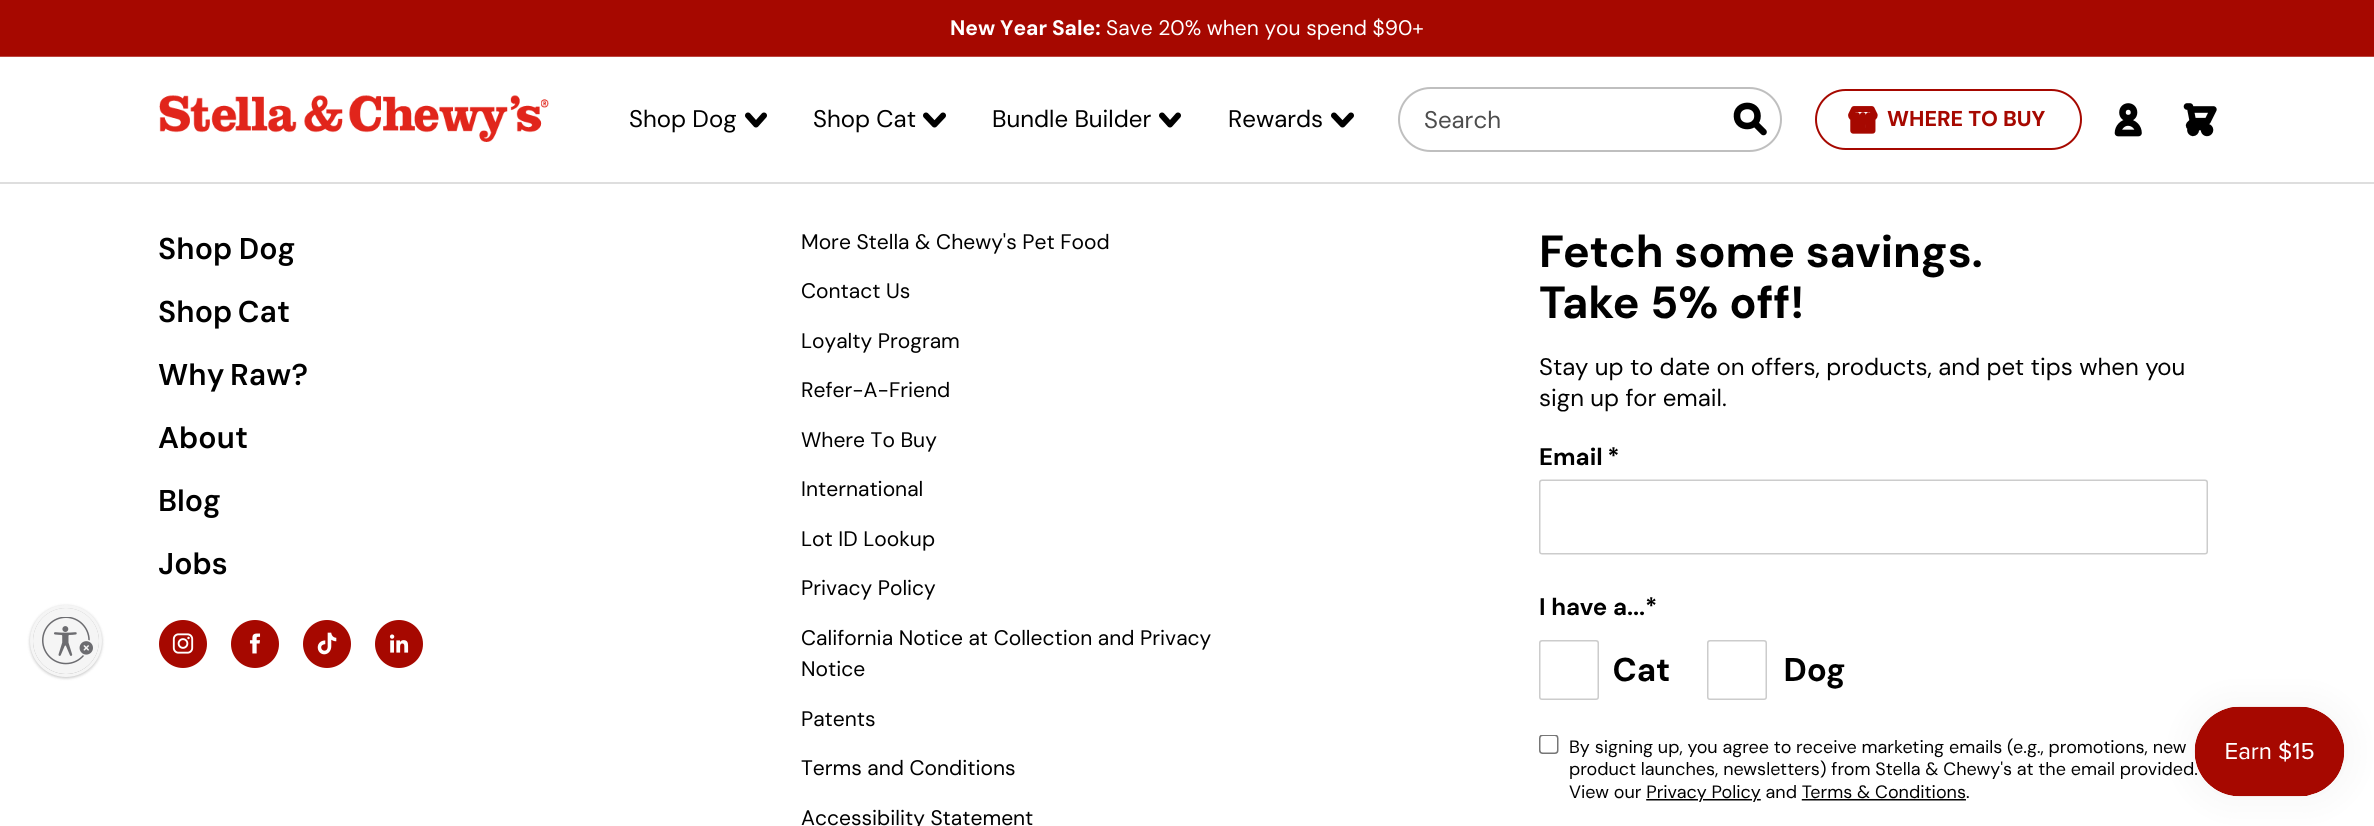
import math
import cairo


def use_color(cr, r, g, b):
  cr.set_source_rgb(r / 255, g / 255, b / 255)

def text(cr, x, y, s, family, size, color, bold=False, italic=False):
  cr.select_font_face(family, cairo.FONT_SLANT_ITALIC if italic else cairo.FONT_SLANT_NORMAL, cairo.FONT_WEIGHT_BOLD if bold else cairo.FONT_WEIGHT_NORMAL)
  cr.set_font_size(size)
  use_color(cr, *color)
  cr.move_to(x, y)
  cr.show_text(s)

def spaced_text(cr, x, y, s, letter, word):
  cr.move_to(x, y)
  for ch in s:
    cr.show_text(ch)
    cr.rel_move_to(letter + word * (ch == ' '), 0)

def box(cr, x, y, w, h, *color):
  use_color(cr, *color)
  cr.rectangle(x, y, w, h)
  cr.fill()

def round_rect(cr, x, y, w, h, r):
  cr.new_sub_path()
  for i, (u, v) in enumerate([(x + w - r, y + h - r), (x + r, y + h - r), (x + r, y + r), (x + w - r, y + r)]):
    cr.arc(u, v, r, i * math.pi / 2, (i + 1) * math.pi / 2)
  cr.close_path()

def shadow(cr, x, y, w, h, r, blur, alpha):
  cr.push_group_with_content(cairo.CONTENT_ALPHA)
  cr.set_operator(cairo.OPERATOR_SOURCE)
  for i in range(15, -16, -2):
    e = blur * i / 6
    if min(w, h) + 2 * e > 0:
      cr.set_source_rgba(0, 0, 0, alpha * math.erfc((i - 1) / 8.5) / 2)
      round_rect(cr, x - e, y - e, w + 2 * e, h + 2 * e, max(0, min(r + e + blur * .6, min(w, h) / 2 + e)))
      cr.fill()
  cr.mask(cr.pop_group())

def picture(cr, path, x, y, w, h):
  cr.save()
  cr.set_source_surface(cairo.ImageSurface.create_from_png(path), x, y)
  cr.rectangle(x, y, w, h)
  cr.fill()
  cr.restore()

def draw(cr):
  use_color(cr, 255, 255, 255)
  cr.paint()
  box(cr, 0, 0, 2374, 56, 166, 8, 0)
  box(cr, 0, 56, 2374, 1, 188, 70, 64)
  box(cr, 0, 182, 2374, 2, 222, 222, 222)
  picture(cr, "img_01.png", 159, 95, 390, 47)
  cr.new_path()
  cr.move_to(764, 115.5)
  cr.line_to(756, 124.5)
  cr.line_to(748, 115.5)
  use_color(cr, 0, 0, 0)
  cr.set_line_width(6)
  cr.set_line_cap(cairo.LINE_CAP_ROUND)
  cr.set_line_join(cairo.LINE_JOIN_ROUND)
  cr.stroke()
  cr.new_path()
  cr.move_to(943, 115.5)
  cr.line_to(934.5, 124.5)
  cr.line_to(926, 115.5)
  cr.stroke()
  cr.new_path()
  cr.move_to(1178, 115.5)
  cr.line_to(1170, 124.5)
  cr.line_to(1162, 115.5)
  cr.stroke()
  cr.new_path()
  cr.move_to(1351, 115.5)
  cr.line_to(1342.5, 124.5)
  cr.line_to(1334, 115.5)
  cr.stroke()
  round_rect(cr, 1399, 88, 382, 63, 31.5)
  use_color(cr, 191, 191, 191)
  cr.set_line_width(2)
  cr.set_line_cap(cairo.LINE_CAP_BUTT)
  cr.set_line_join(cairo.LINE_JOIN_MITER)
  cr.stroke()
  cr.new_path()
  cr.move_to(1763.5, 132)
  cr.line_to(1754.5, 123)
  cr.move_to(1757.5, 116)
  cr.curve_to(1757.5, 129, 1737.5, 129.5, 1737, 116.5)
  cr.curve_to(1736, 103, 1757.5, 102, 1757.5, 116)
  cr.close_path()
  use_color(cr, 0, 0, 0)
  cr.set_line_width(6.6)
  cr.set_line_cap(cairo.LINE_CAP_ROUND)
  cr.set_line_join(cairo.LINE_JOIN_ROUND)
  cr.stroke()
  round_rect(cr, 1816, 90, 265, 59, 29.5)
  use_color(cr, 166, 8, 0)
  cr.set_line_width(2)
  cr.set_line_cap(cairo.LINE_CAP_BUTT)
  cr.set_line_join(cairo.LINE_JOIN_MITER)
  cr.stroke()
  picture(cr, "img_02.png", 1848, 106, 30, 28)
  cr.new_path()
  cr.move_to(2134, 112.5)
  cr.curve_to(2134, 120, 2122.5, 120, 2122.5, 112.5)
  cr.curve_to(2122.5, 104.5, 2134, 104.5, 2134, 112.5)
  cr.close_path()
  cr.move_to(2128, 122.5)
  cr.curve_to(2122.5, 122.5, 2118, 127.5, 2118, 133)
  cr.line_to(2138.5, 133)
  cr.curve_to(2138.5, 127.5, 2134, 122.5, 2128, 122.5)
  cr.close_path()
  use_color(cr, 0, 0, 0)
  cr.set_line_width(6.6)
  cr.set_line_cap(cairo.LINE_CAP_ROUND)
  cr.set_line_join(cairo.LINE_JOIN_ROUND)
  cr.stroke()
  picture(cr, "img_03.png", 2183, 103, 34, 34)
  use_color(cr, 0, 0, 0)
  shadow(cr, 30, 606, 72, 72, 36, 1.5, 0.24)
  cr.arc(66, 641, 34.5, 0, 2 * math.pi)
  use_color(cr, 245, 245, 245)
  cr.set_line_width(3)
  cr.set_line_cap(cairo.LINE_CAP_BUTT)
  cr.set_line_join(cairo.LINE_JOIN_MITER)
  cr.stroke()
  cr.save()
  round_rect(cr, 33, 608, 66, 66, 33)
  cr.clip()
  use_color(cr, 0, 0, 0)
  shadow(cr, 33, 609, 66, 66, 33, 1.5, 0.24)
  cr.restore()
  cr.arc(66, 641, 33, 0, 2 * math.pi)
  cr.fill()
  picture(cr, "img_04.png", 42, 617, 51, 48)
  use_color(cr, 166, 8, 0)
  cr.arc(183, 644, 23, 0, 2 * math.pi)
  cr.fill_preserve()
  cr.set_line_width(2)
  cr.stroke()
  picture(cr, "img_05.png", 172, 633, 22, 21)
  cr.arc(255, 644, 23, 0, 2 * math.pi)
  cr.fill_preserve()
  cr.stroke()
  picture(cr, "img_06.png", 249, 633, 12, 21)
  cr.arc(327, 644, 23, 0, 2 * math.pi)
  cr.fill_preserve()
  cr.stroke()
  picture(cr, "img_07.png", 317, 632, 20, 23)
  cr.arc(399, 644, 23, 0, 2 * math.pi)
  cr.fill_preserve()
  cr.stroke()
  picture(cr, "img_08.png", 389, 634, 20, 19)
  picture(cr, "img_09.png", 1539, 234, 669, 568)
  use_color(cr, 0, 0, 0)
  shadow(cr, 2195, 707, 150, 90, 45, 19, 0.05)
  picture(cr, "img_10.png", 2194, 706, 151, 91)
  text(cr, 950, 35, "New Year Sale:", "DM Sans", 21, (255, 255, 255), bold=True)
  text(cr, 1106, 35, "Save 20% when you spend $90+", "DM Sans", 21, (255, 255, 255))
  text(cr, 629, 127, "Shop Dog", "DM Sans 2", 24, (0, 0, 0))
  text(cr, 813, 127, "Shop Cat", "DM Sans 2", 24, (0, 0, 0))
  text(cr, 992, 127, "Bundle Builder", "DM Sans 2", 24, (0, 0, 0))
  text(cr, 1228, 127, "Rewards", "DM Sans 2", 24, (0, 0, 0))
  text(cr, 1424, 128, "Search", "DM Sans 2", 24, (77, 77, 77))
  text(cr, 1887, 126, "WHERE TO BUY", "DM Sans ExtraBold", 21.5, (166, 8, 0))
  cr.select_font_face("DM Sans SemiBold")
  cr.set_font_size(30)
  use_color(cr, 0, 0, 0)
  spaced_text(cr, 158, 259, "Shop Dog", 0, -1)
  spaced_text(cr, 158, 322, "Shop Cat", 0, -2)
  spaced_text(cr, 158, 385, "Why Raw?", 0, -2)
  text(cr, 158, 448, "About", "DM Sans SemiBold", 30, (0, 0, 0))
  text(cr, 158, 511, "Blog", "DM Sans SemiBold", 30, (0, 0, 0))
  text(cr, 158, 574, "Jobs", "DM Sans SemiBold", 30, (0, 0, 0))
  text(cr, 801, 249, "More Stella & Chewy's Pet Food", "DM Sans", 21, (0, 0, 0))
  text(cr, 801, 298, "Contact Us", "DM Sans", 21, (0, 0, 0))
  text(cr, 801, 348, "Loyalty Program", "DM Sans", 21, (0, 0, 0))
  text(cr, 801, 397, "Refer-A-Friend", "DM Sans", 21, (0, 0, 0))
  text(cr, 801, 447, "Where To Buy", "DM Sans", 21, (0, 0, 0))
  text(cr, 801, 496, "International", "DM Sans", 21, (0, 0, 0))
  text(cr, 801, 546, "Lot ID Lookup", "DM Sans", 21, (0, 0, 0))
  text(cr, 801, 595, "Privacy Policy", "DM Sans", 21, (0, 0, 0))
  text(cr, 801, 645, "California Notice at Collection and Privacy", "DM Sans", 21, (0, 0, 0))
  text(cr, 801, 676, "Notice", "DM Sans", 21, (0, 0, 0))
  text(cr, 801, 726, "Patents", "DM Sans", 21, (0, 0, 0))
  text(cr, 801, 775, "Terms and Conditions", "DM Sans", 21, (0, 0, 0))
  text(cr, 801, 825, "Accessibility Statement", "DM Sans", 21, (0, 0, 0))


surface = cairo.ImageSurface(cairo.FORMAT_RGB24, 2374, 826)
cr = cairo.Context(surface)
options = cairo.FontOptions()
options.set_hint_metrics(cairo.HINT_METRICS_OFF)
options.set_hint_style(cairo.HINT_STYLE_NONE)
cr.set_font_options(options)
cr.set_miter_limit(4)
draw(cr)
surface.write_to_png("out.png")
